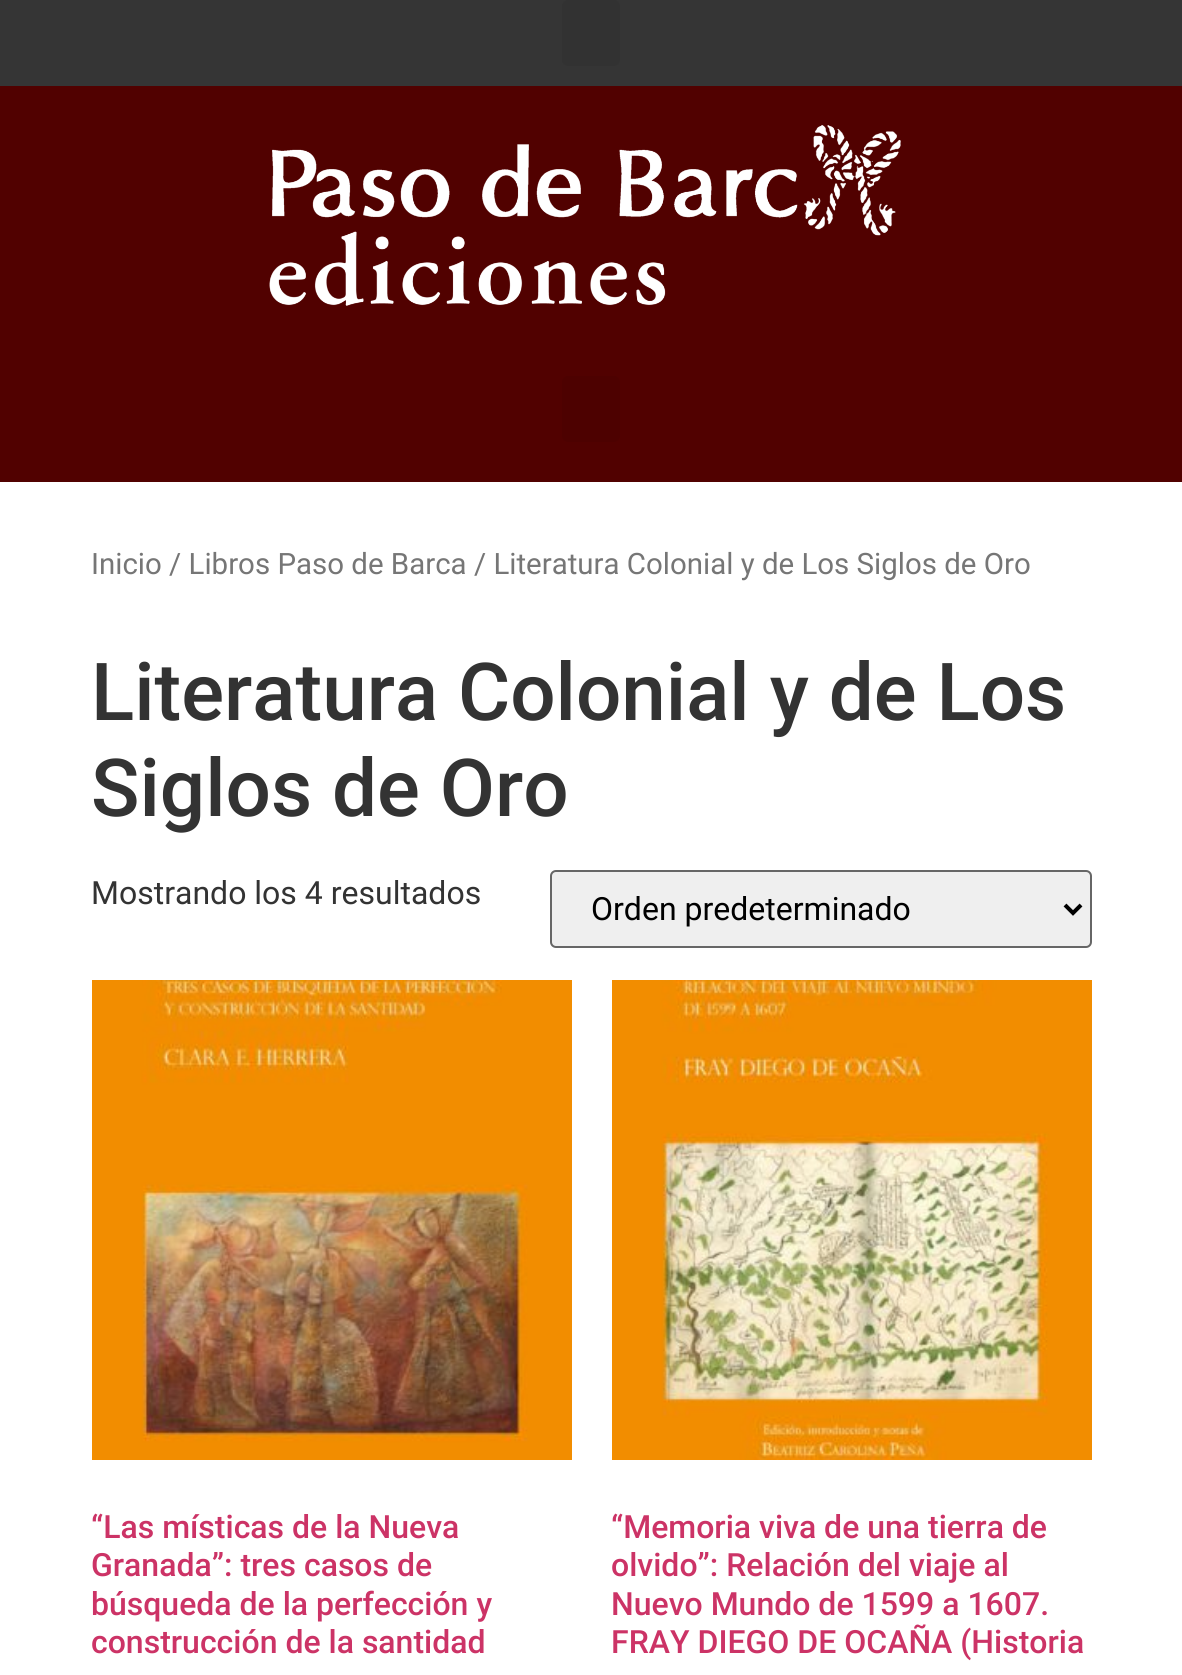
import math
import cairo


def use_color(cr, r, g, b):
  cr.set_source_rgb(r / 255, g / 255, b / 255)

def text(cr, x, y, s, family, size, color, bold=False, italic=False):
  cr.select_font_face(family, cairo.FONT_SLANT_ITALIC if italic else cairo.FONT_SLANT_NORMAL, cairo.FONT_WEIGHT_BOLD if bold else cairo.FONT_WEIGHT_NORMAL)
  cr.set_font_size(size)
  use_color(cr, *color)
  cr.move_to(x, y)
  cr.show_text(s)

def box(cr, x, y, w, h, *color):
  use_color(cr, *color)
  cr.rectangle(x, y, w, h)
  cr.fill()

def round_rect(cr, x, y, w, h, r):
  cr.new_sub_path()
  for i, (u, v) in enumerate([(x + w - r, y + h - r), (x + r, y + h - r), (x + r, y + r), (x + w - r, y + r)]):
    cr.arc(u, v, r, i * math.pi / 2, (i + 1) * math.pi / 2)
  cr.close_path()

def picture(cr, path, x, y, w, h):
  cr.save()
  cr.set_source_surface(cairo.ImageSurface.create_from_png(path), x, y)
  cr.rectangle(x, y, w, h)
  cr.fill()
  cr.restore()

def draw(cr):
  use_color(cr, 255, 255, 255)
  cr.paint()
  box(cr, 0, 0, 1182, 86, 53, 53, 53)
  use_color(cr, 50, 50, 50)
  round_rect(cr, 562, 0, 58, 66, 6)
  cr.fill()
  box(cr, 0, 86, 1182, 396, 81, 1, 0)
  picture(cr, "img_01.png", 269, 125, 632, 181)
  use_color(cr, 77, 1, 0)
  round_rect(cr, 562, 376, 58, 66, 6)
  cr.fill()
  use_color(cr, 239, 239, 239)
  round_rect(cr, 551, 871, 540, 76, 5)
  cr.fill_preserve()
  use_color(cr, 102, 102, 102)
  cr.stroke()
  cr.new_path()
  cr.move_to(1065, 905)
  cr.line_to(1073, 913)
  cr.line_to(1081, 905)
  use_color(cr, 0, 0, 0)
  cr.set_line_width(4)
  cr.stroke()
  picture(cr, "img_02.png", 92, 980, 480, 480)
  picture(cr, "img_03.png", 612, 980, 480, 480)
  text(cr, 91, 574, "Inicio / Libros Paso de Barca / Literatura Colonial y de Los Siglos de Oro", "Roboto", 29.45, (118, 118, 118))
  text(cr, 91, 720, "Literatura Colonial y de Los", "Roboto Medium", 80, (51, 51, 51))
  text(cr, 91, 816, "Siglos de Oro", "Roboto Medium", 80, (51, 51, 51))
  text(cr, 91, 904, "Mostrando los 4 resultados", "Roboto", 32, (51, 51, 51))
  text(cr, 591, 920, "Orden predeterminado", "Roboto", 32, (0, 0, 0))
  text(cr, 91, 1538, "“Las místicas de la Nueva", "Roboto Medium", 32, (204, 51, 102))
  text(cr, 91, 1576, "Granada”: tres casos de", "Roboto Medium", 32, (204, 51, 102))
  text(cr, 91, 1615, "búsqueda de la perfección y", "Roboto Medium", 32, (204, 51, 102))
  text(cr, 91, 1653, "construcción de la santidad", "Roboto Medium", 32, (204, 51, 102))
  text(cr, 611, 1538, "“Memoria viva de una tierra de", "Roboto Medium", 32, (204, 51, 102))
  text(cr, 611, 1576, "olvido”: Relación del viaje al", "Roboto Medium", 32, (204, 51, 102))
  text(cr, 611, 1615, "Nuevo Mundo de 1599 a 1607.", "Roboto Medium", 32, (204, 51, 102))
  text(cr, 611, 1653, "FRAY DIEGO DE OCAÑA (Historia", "Roboto Medium", 32, (204, 51, 102))


surface = cairo.ImageSurface(cairo.FORMAT_RGB24, 1182, 1675)
cr = cairo.Context(surface)
options = cairo.FontOptions()
options.set_hint_metrics(cairo.HINT_METRICS_OFF)
options.set_hint_style(cairo.HINT_STYLE_NONE)
cr.set_font_options(options)
cr.set_miter_limit(4)
draw(cr)
surface.write_to_png("out.png")
